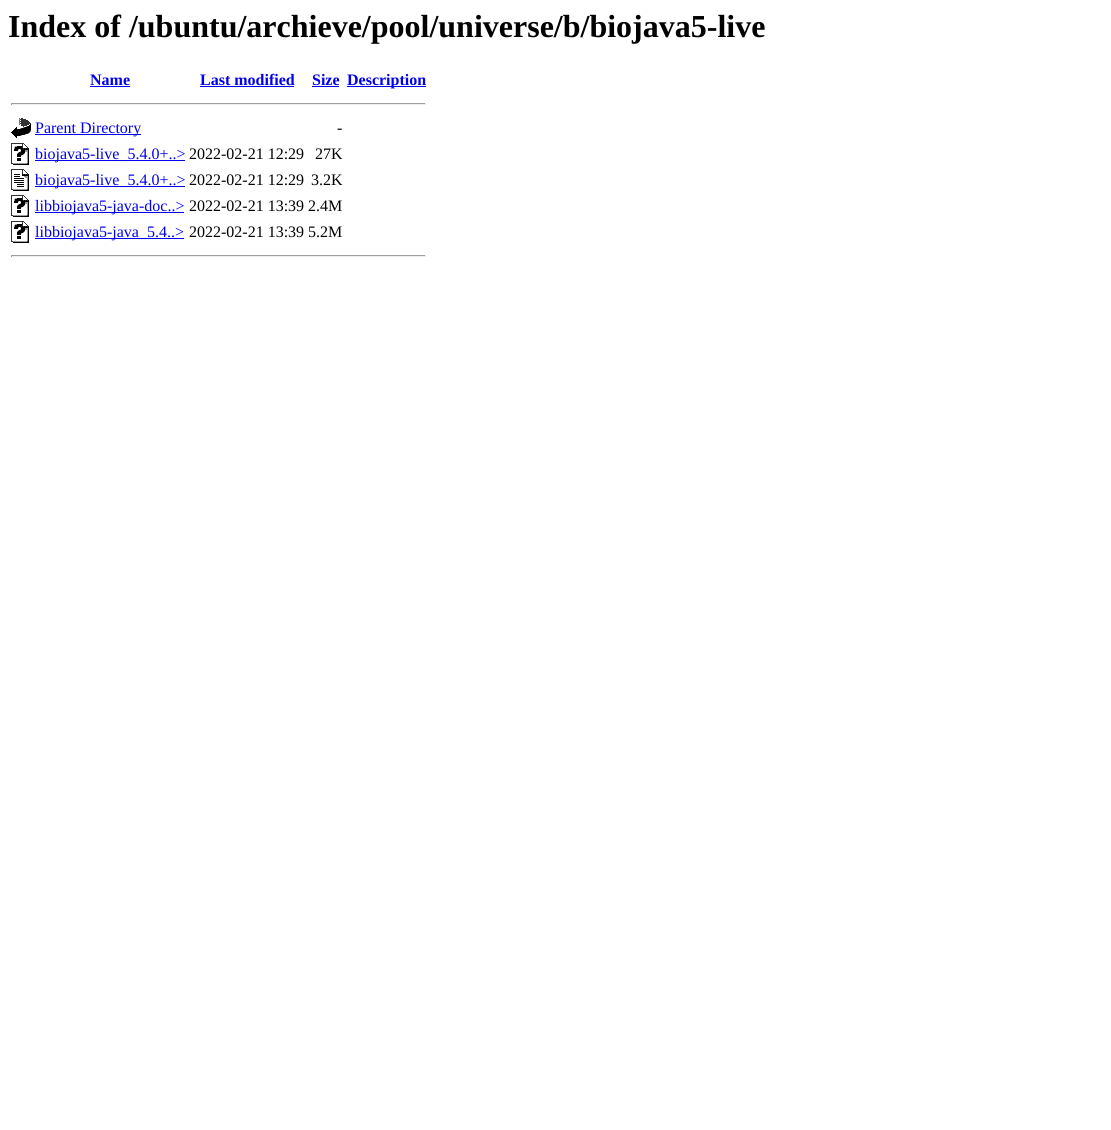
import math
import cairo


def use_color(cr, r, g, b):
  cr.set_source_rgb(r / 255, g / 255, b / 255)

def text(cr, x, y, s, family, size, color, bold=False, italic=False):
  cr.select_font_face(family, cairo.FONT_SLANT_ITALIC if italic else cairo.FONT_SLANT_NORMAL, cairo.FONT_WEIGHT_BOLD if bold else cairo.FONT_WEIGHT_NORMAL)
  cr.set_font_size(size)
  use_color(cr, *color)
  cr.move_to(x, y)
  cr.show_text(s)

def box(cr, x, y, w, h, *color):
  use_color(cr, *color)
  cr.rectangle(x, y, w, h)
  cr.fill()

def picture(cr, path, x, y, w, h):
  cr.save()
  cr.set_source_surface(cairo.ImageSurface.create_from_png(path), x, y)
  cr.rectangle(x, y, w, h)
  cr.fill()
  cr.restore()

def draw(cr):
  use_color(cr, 255, 255, 255)
  cr.paint()
  box(cr, 90, 86, 40, 1, 0, 0, 238)
  box(cr, 200, 86, 94, 1, 0, 0, 238)
  box(cr, 312, 86, 27, 1, 0, 0, 238)
  box(cr, 347, 86, 79, 1, 0, 0, 238)
  box(cr, 11, 103, 415, 1, 159, 159, 159)
  box(cr, 425, 103, 1, 2, 238, 238, 238)
  box(cr, 11, 104, 415, 1, 238, 238, 238)
  box(cr, 11, 103, 1, 2, 159, 159, 159)
  picture(cr, "img_01.png", 11, 118, 20, 20)
  box(cr, 35, 134, 106, 1, 0, 0, 238)
  picture(cr, "img_02.png", 11, 143, 18, 22)
  box(cr, 35, 160, 150, 1, 0, 0, 238)
  picture(cr, "img_03.png", 11, 169, 18, 22)
  box(cr, 35, 186, 150, 1, 0, 0, 238)
  picture(cr, "img_02.png", 11, 195, 18, 22)
  box(cr, 35, 212, 149, 1, 0, 0, 238)
  picture(cr, "img_02.png", 11, 221, 18, 22)
  box(cr, 35, 238, 149, 1, 0, 0, 238)
  box(cr, 11, 255, 415, 1, 159, 159, 159)
  box(cr, 425, 255, 1, 2, 238, 238, 238)
  box(cr, 11, 256, 415, 1, 238, 238, 238)
  box(cr, 11, 255, 1, 2, 159, 159, 159)
  text(cr, 8, 37, "Index of /ubuntu/archieve/pool/universe/b/biojava5-live", "Liberation Serif", 32, (0, 0, 0), bold=True)
  text(cr, 90, 85, "Name", "Liberation Serif", 16, (0, 0, 238), bold=True)
  text(cr, 200, 85, "Last modified", "Liberation Serif", 16, (0, 0, 238), bold=True)
  text(cr, 312, 85, "Size", "Liberation Serif", 16, (0, 0, 238), bold=True)
  text(cr, 347, 85, "Description", "Liberation Serif", 16, (0, 0, 238), bold=True)
  text(cr, 35, 133, "Parent Directory", "Liberation Serif", 16, (0, 0, 238))
  text(cr, 337, 133, "-", "Liberation Serif", 16, (0, 0, 0))
  text(cr, 35, 159, "biojava5-live_5.4.0+..>", "Liberation Serif", 16, (0, 0, 238))
  text(cr, 189, 159, "2022-02-21 12:29", "Liberation Serif", 16, (0, 0, 0))
  text(cr, 315, 159, "27K", "Liberation Serif", 16, (0, 0, 0))
  text(cr, 35, 185, "biojava5-live_5.4.0+..>", "Liberation Serif", 16, (0, 0, 238))
  text(cr, 189, 185, "2022-02-21 12:29", "Liberation Serif", 16, (0, 0, 0))
  text(cr, 311, 185, "3.2K", "Liberation Serif", 16, (0, 0, 0))
  text(cr, 35, 211, "libbiojava5-java-doc..>", "Liberation Serif", 16, (0, 0, 238))
  text(cr, 189, 211, "2022-02-21 13:39 2.4M", "Liberation Serif", 16, (0, 0, 0))
  text(cr, 35, 237, "libbiojava5-java_5.4..>", "Liberation Serif", 16, (0, 0, 238))
  text(cr, 189, 237, "2022-02-21 13:39 5.2M", "Liberation Serif", 16, (0, 0, 0))


surface = cairo.ImageSurface(cairo.FORMAT_RGB24, 1111, 1130)
cr = cairo.Context(surface)
options = cairo.FontOptions()
options.set_hint_metrics(cairo.HINT_METRICS_OFF)
options.set_hint_style(cairo.HINT_STYLE_NONE)
cr.set_font_options(options)
cr.set_miter_limit(4)
draw(cr)
surface.write_to_png("out.png")
